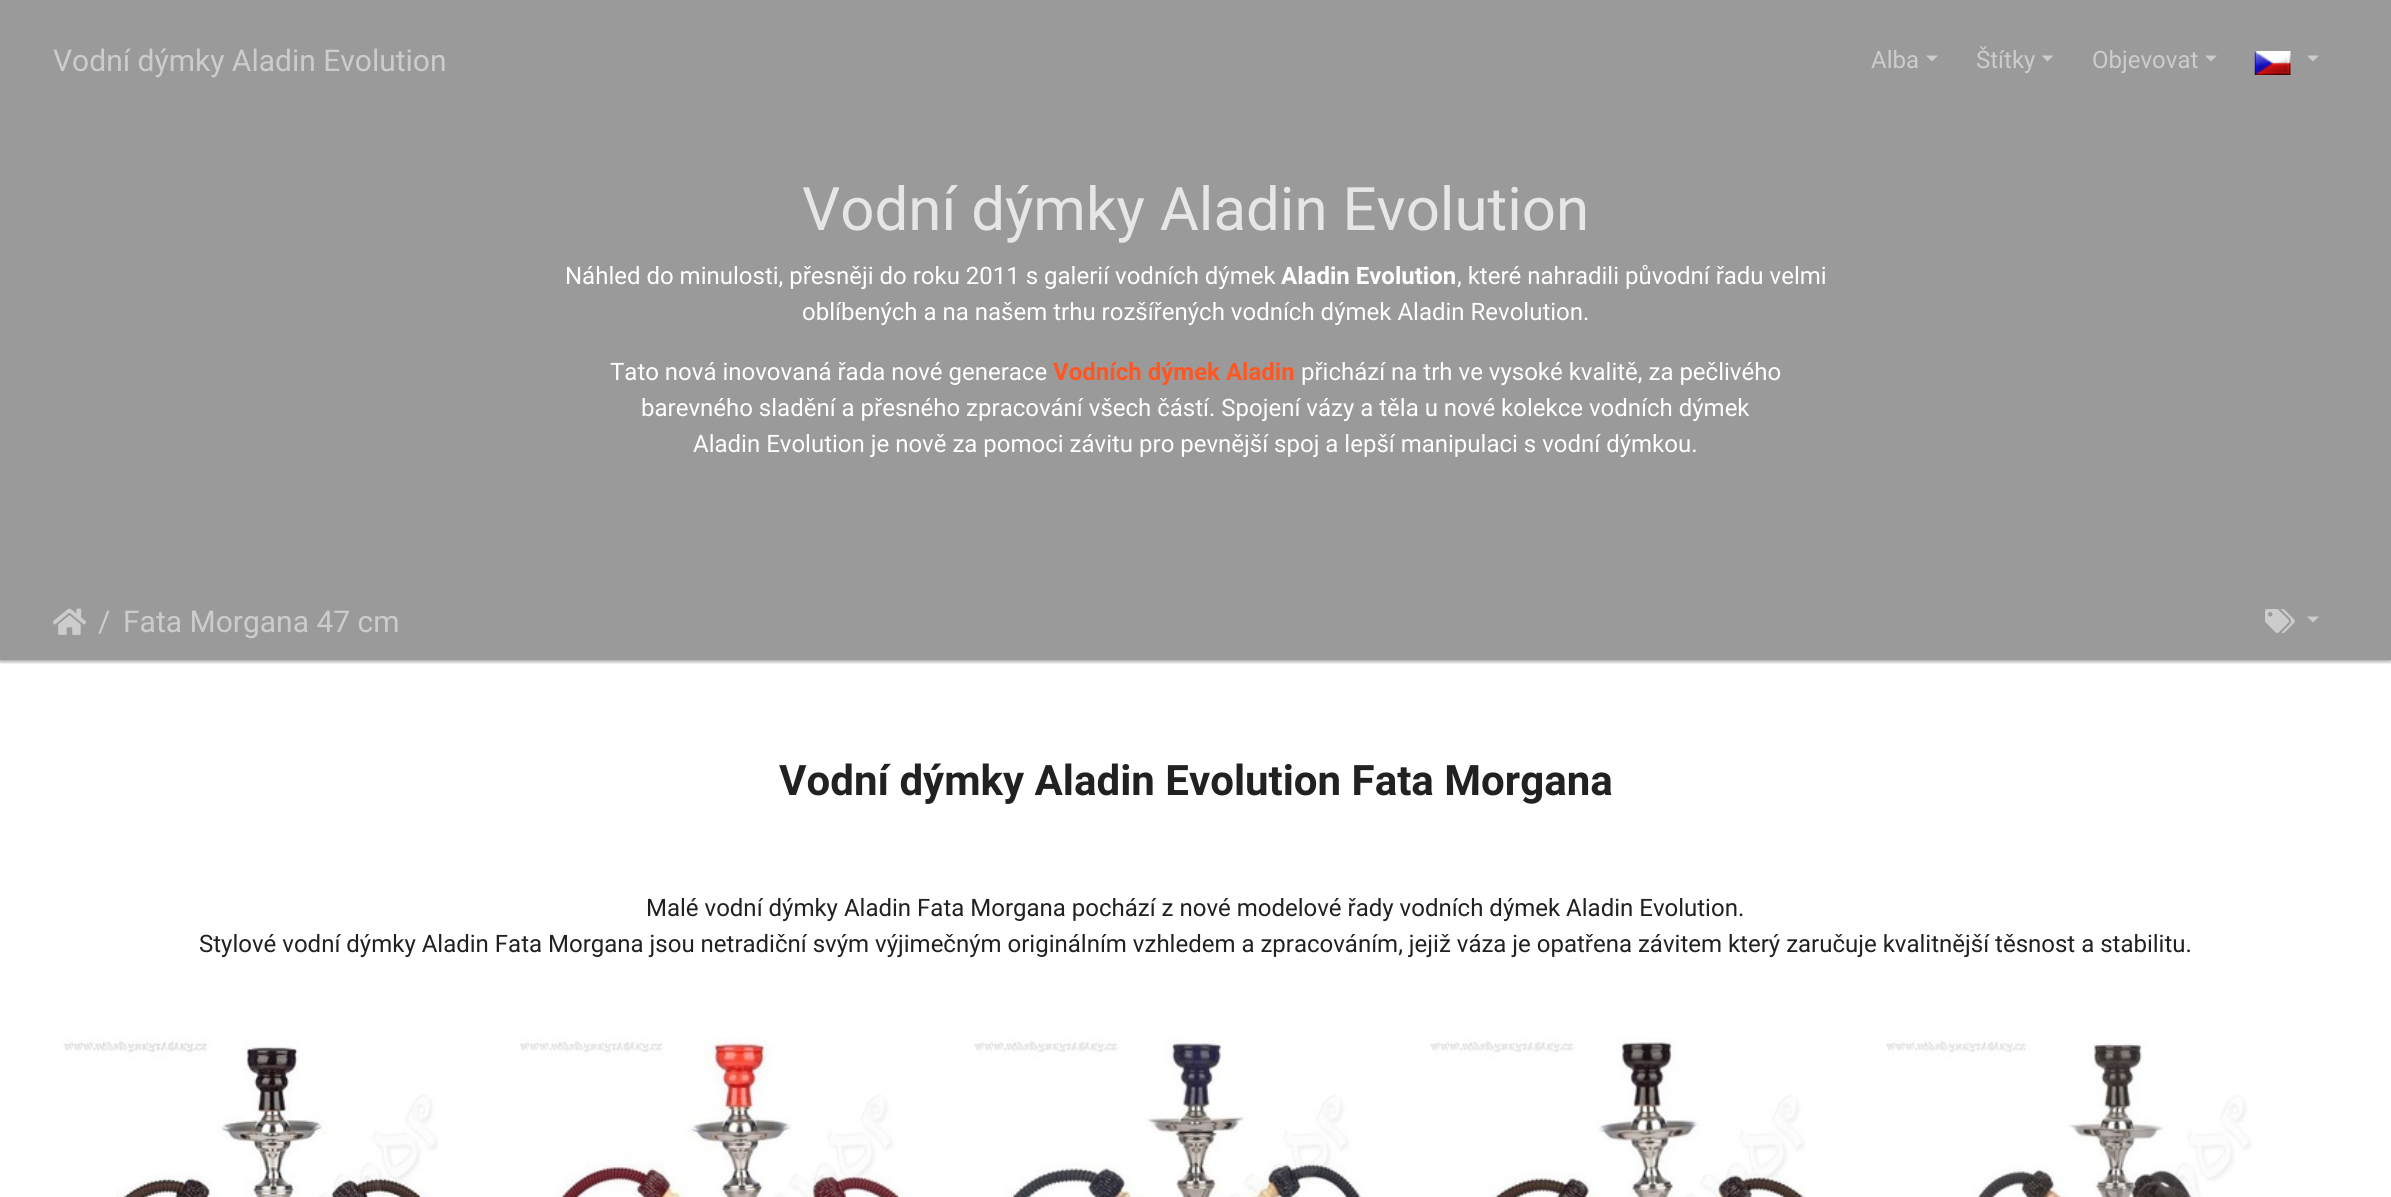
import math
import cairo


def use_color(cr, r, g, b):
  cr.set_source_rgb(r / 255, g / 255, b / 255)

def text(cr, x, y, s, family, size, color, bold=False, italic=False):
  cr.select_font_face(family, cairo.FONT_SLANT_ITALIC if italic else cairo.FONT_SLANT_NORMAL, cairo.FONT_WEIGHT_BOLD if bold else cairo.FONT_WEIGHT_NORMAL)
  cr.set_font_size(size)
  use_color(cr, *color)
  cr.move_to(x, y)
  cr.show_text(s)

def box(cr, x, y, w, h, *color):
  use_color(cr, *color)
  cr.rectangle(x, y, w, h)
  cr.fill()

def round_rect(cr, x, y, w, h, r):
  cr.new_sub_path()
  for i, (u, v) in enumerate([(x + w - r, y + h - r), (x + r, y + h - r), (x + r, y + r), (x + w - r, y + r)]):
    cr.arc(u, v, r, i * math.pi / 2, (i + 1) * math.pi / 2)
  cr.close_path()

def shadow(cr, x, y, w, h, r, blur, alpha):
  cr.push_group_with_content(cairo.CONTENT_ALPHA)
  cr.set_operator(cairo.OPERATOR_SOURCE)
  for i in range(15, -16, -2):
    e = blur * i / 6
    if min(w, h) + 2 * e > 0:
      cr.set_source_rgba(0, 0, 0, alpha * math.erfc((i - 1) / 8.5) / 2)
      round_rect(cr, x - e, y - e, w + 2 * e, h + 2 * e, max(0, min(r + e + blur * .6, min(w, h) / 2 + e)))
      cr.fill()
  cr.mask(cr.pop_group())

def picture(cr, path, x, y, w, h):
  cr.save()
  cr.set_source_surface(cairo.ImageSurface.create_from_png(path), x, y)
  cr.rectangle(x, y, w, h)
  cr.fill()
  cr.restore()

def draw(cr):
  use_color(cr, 255, 255, 255)
  cr.paint()
  box(cr, 0, 0, 2391, 660, 154, 154, 154)
  use_color(cr, 204, 204, 204)
  cr.new_path()
  cr.move_to(1926, 55.5)
  cr.line_to(1938, 55.5)
  cr.line_to(1932, 61.5)
  cr.close_path()
  cr.fill()
  cr.new_path()
  cr.move_to(2041.5, 55.5)
  cr.line_to(2053.5, 55.5)
  cr.line_to(2047.5, 61.5)
  cr.close_path()
  cr.fill()
  cr.new_path()
  cr.move_to(2205, 55.5)
  cr.line_to(2217, 55.5)
  cr.line_to(2211, 61.5)
  cr.close_path()
  cr.fill()
  picture(cr, "img_01.png", 2254, 51, 37, 24)
  cr.new_path()
  cr.move_to(2307, 55.5)
  cr.line_to(2319, 55.5)
  cr.line_to(2313, 61.5)
  cr.close_path()
  cr.fill()
  cr.save()
  cr.rectangle(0, 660, 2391, 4)
  cr.clip()
  use_color(cr, 0, 0, 0)
  shadow(cr, 0, 585, 2391, 77, 0, 1.5, 0.24)
  shadow(cr, 0, 585, 2391, 77, 0, 2, 0.12)
  cr.restore()
  picture(cr, "img_02.png", 53, 608, 34, 27)
  picture(cr, "img_03.png", 2265, 609, 30, 24)
  cr.new_path()
  cr.move_to(2307, 616.5)
  cr.line_to(2319, 616.5)
  cr.line_to(2313, 622.5)
  cr.close_path()
  cr.fill()
  picture(cr, "img_04.png", 63, 1038, 376, 159)
  picture(cr, "img_05.png", 520, 1038, 383, 159)
  picture(cr, "img_06.png", 974, 1038, 392, 159)
  picture(cr, "img_07.png", 1430, 1038, 376, 159)
  picture(cr, "img_08.png", 1886, 1040, 366, 157)
  text(cr, 53, 71, "Vodní dýmky Aladin Evolution", "Roboto", 30, (204, 204, 204))
  text(cr, 1871, 68, "Alba", "Roboto", 24, (204, 204, 204))
  text(cr, 1976, 68, "Štítky", "Roboto", 24, (204, 204, 204))
  text(cr, 2092, 68, "Objevovat", "Roboto", 24, (204, 204, 204))
  text(cr, 802, 230, "Vodní dýmky Aladin Evolution", "Roboto", 60, (230, 230, 230))
  text(cr, 565, 284, "Náhled do minulosti, přesněji do roku 2011 s galerií vodních dýmek", "Roboto", 24, (255, 255, 255))
  text(cr, 1281, 284, "Aladin Evolution", "Roboto", 24, (255, 255, 255), bold=True)
  text(cr, 1457, 284, ", které nahradili původní řadu velmi", "Roboto", 24, (255, 255, 255))
  text(cr, 802, 320, "oblíbených a na našem trhu rozšířených vodních dýmek Aladin Revolution.", "Roboto", 24, (255, 255, 255))
  text(cr, 610, 380, "Tato nová inovovaná řada nové generace", "Roboto", 24, (255, 255, 255))
  text(cr, 1053, 380, "Vodních dýmek Aladin", "Roboto", 24, (255, 87, 34), bold=True)
  text(cr, 1301, 380, "přichází na trh ve vysoké kvalitě, za pečlivého", "Roboto", 24, (255, 255, 255))
  text(cr, 641, 416, "barevného sladění a přesného zpracování všech částí. Spojení vázy a těla u nové kolekce vodních dýmek", "Roboto", 24, (255, 255, 255))
  text(cr, 693, 452, "Aladin Evolution je nově za pomoci závitu pro pevnější spoj a lepší manipulaci s vodní dýmkou.", "Roboto", 24, (255, 255, 255))
  text(cr, 98, 632, "/", "Roboto", 30, (204, 204, 204))
  text(cr, 123, 632, "Fata Morgana 47 cm", "Roboto", 30, (204, 204, 204))
  text(cr, 779, 795, "Vodní dýmky Aladin Evolution Fata Morgana", "Roboto", 42, (33, 33, 33), bold=True)
  text(cr, 646, 916, "Malé vodní dýmky Aladin Fata Morgana pochází z nové modelové řady vodních dýmek Aladin Evolution.", "Roboto", 24, (33, 33, 33))
  text(cr, 199, 952, "Stylové vodní dýmky Aladin Fata Morgana jsou netradiční svým výjimečným originálním vzhledem a zpracováním, jejiž váza je opatřena závitem který zaručuje kvalitnější těsnost a stabilitu.", "Roboto", 24, (33, 33, 33))


surface = cairo.ImageSurface(cairo.FORMAT_RGB24, 2391, 1197)
cr = cairo.Context(surface)
options = cairo.FontOptions()
options.set_hint_metrics(cairo.HINT_METRICS_OFF)
options.set_hint_style(cairo.HINT_STYLE_NONE)
cr.set_font_options(options)
cr.set_miter_limit(4)
draw(cr)
surface.write_to_png("out.png")
